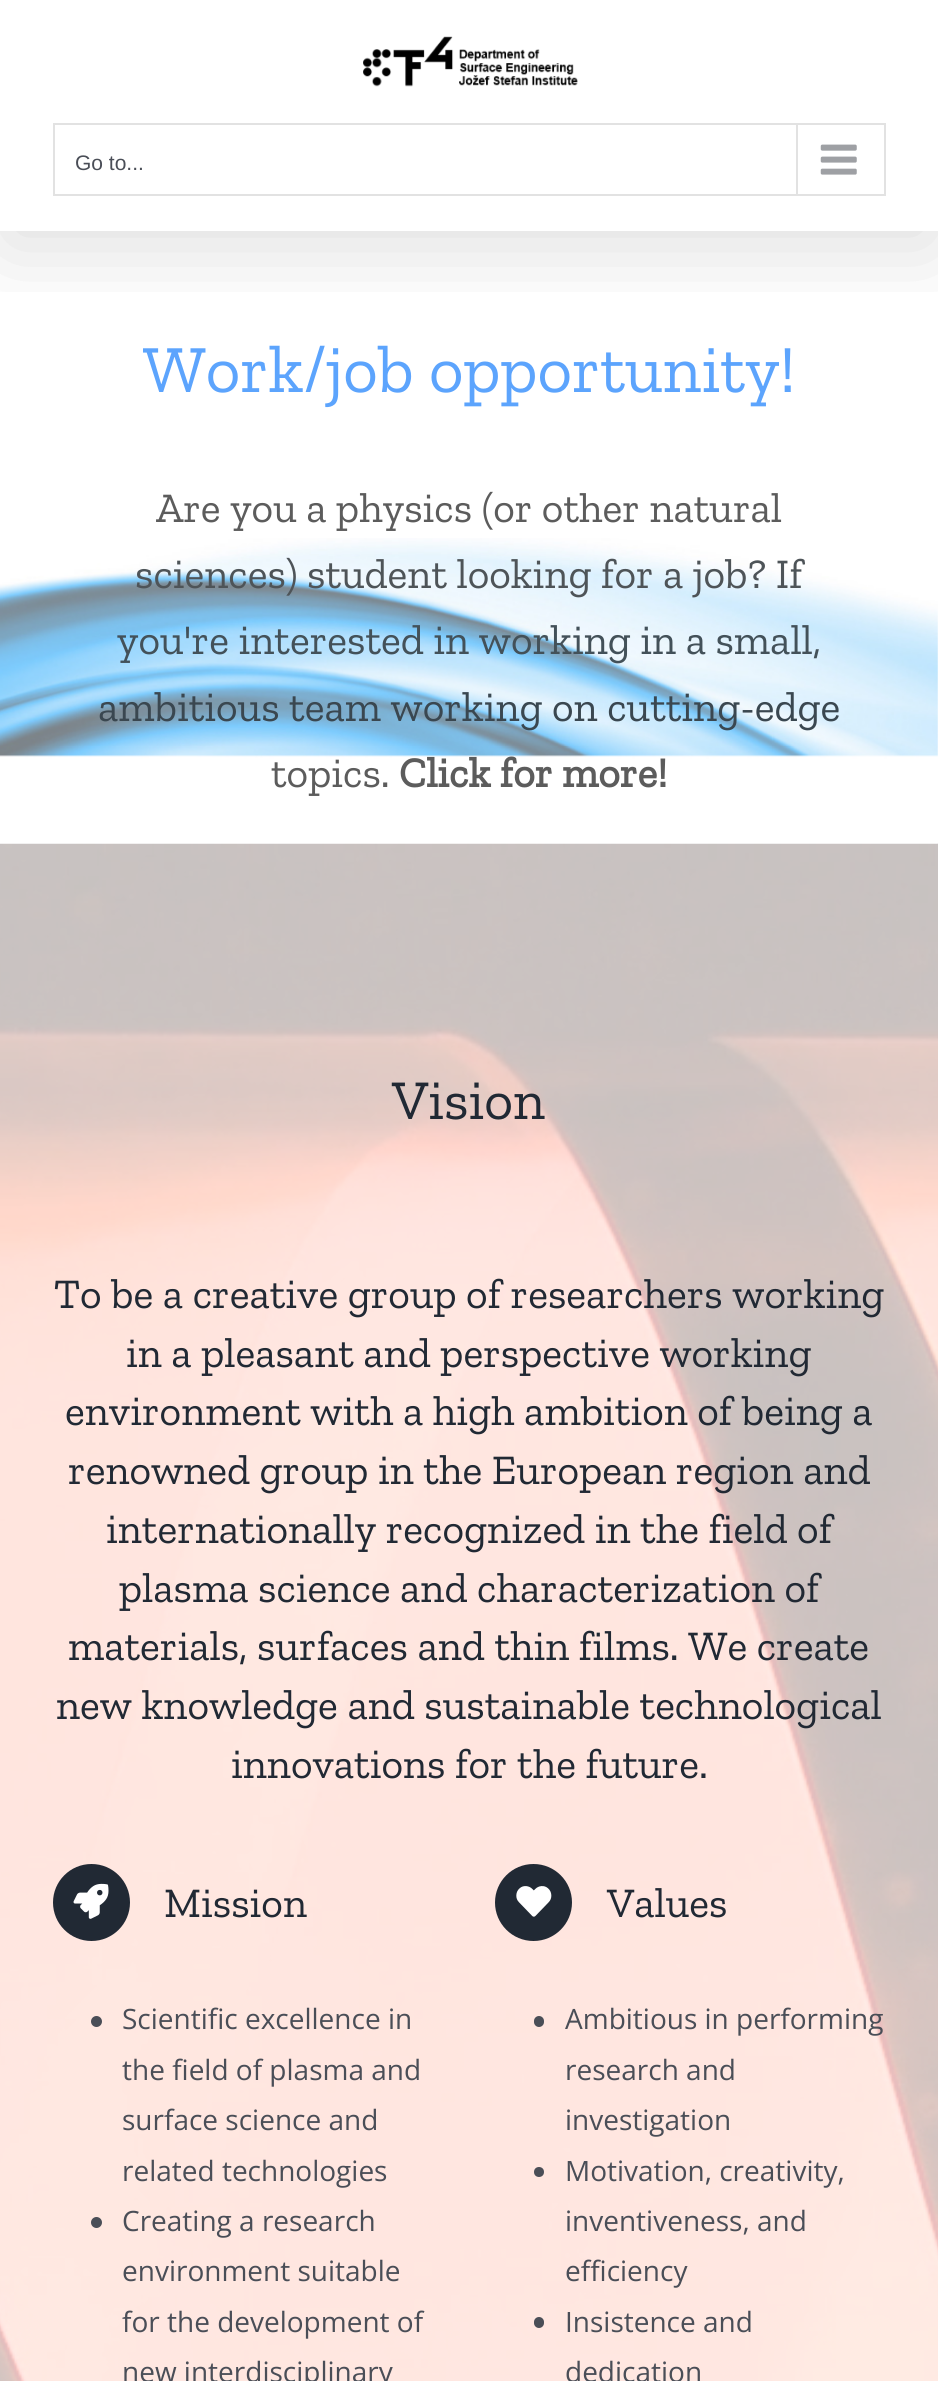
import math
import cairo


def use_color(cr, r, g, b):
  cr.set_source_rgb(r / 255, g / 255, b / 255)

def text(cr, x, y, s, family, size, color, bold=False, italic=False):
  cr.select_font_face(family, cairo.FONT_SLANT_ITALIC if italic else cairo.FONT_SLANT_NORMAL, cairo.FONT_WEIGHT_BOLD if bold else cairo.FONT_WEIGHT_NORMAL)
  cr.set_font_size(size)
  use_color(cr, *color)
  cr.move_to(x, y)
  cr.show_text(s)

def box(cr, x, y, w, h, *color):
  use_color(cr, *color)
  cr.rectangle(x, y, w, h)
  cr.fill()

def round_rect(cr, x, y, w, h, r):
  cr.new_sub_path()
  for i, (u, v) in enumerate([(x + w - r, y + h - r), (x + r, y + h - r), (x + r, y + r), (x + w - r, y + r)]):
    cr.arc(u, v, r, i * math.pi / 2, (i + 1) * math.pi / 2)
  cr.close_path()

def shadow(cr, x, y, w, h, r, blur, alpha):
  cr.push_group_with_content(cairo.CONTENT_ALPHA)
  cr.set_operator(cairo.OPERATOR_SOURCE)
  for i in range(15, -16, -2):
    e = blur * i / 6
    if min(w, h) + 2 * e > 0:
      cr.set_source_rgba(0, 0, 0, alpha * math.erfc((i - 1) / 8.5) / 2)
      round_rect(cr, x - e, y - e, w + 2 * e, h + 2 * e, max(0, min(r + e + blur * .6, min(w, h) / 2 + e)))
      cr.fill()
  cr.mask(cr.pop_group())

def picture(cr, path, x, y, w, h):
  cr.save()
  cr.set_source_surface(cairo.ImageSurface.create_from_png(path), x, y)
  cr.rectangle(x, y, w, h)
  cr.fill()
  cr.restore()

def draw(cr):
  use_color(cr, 255, 255, 255)
  cr.paint()
  cr.save()
  cr.rectangle(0, 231, 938, 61)
  cr.clip()
  use_color(cr, 0, 0, 0)
  shadow(cr, 4, 21, 931, 224, 0, 44, 0.14)
  cr.restore()
  picture(cr, "img_01.png", 363, 36, 215, 51)
  cr.rectangle(54, 124, 831, 71)
  use_color(cr, 226, 226, 226)
  cr.stroke()
  box(cr, 796, 124, 2, 70, 226, 226, 226)
  picture(cr, "img_02.png", 820, 144, 37, 31)
  picture(cr, "img_04.png", 0, 843, 938, 1538)
  picture(cr, "img_03.png", 0, 538, 938, 306)
  use_color(cr, 33, 41, 52)
  cr.arc(91.5, 1902.5, 38.5, 0, 2 * math.pi)
  cr.fill()
  picture(cr, "img_05.png", 73, 1883, 36, 36)
  use_color(cr, 74, 78, 87)
  cr.arc(96.5, 2021.5, 5.5, 0, 2 * math.pi)
  cr.fill()
  cr.arc(96.5, 2222.5, 5.5, 0, 2 * math.pi)
  cr.fill()
  use_color(cr, 33, 41, 52)
  cr.arc(533.5, 1902.5, 38.5, 0, 2 * math.pi)
  cr.fill()
  picture(cr, "img_06.png", 516, 1886, 36, 31)
  use_color(cr, 74, 78, 87)
  round_rect(cr, 534, 2016, 10, 11, 5)
  cr.fill()
  cr.arc(539, 2172, 5, 0, 2 * math.pi)
  cr.fill()
  round_rect(cr, 534, 2317, 10, 11, 5)
  cr.fill()
  text(cr, 75, 170, "Go to...", "Liberation Sans", 21, (74, 78, 87))
  text(cr, 143, 392, "Work/job opportunity!", "Zilla Slab", 67.25, (92, 164, 253))
  text(cr, 156, 522, "Are you a physics (or other natural", "Zilla Slab", 42, (92, 92, 92))
  text(cr, 135, 588, "sciences) student looking for a job? If", "Zilla Slab", 42, (78, 84, 88))
  text(cr, 117, 654, "you're interested in working in a small,", "Zilla Slab", 42, (67, 81, 89))
  text(cr, 98, 721, "ambitious team working on cutting-edge", "Zilla Slab", 42, (58, 71, 80))
  text(cr, 271, 787, "topics.", "Zilla Slab", 42, (92, 92, 92))
  text(cr, 399, 787, "Click for more!", "Zilla Slab", 42, (92, 92, 92), bold=True)
  text(cr, 392, 1119, "Vision", "Zilla Slab", 56, (33, 41, 52))
  text(cr, 54, 1308, "To be a creative group of researchers working", "Zilla Slab", 42, (33, 41, 52))
  text(cr, 126, 1367, "in a pleasant and perspective working", "Zilla Slab", 42, (33, 41, 52))
  text(cr, 65, 1425, "environment with a high ambition of being a", "Zilla Slab", 42, (33, 41, 52))
  text(cr, 68, 1484, "renowned group in the European region and", "Zilla Slab", 42, (33, 41, 52))
  text(cr, 106, 1543, "internationally recognized in the field of", "Zilla Slab", 42, (33, 41, 52))
  text(cr, 119, 1602, "plasma science and characterization of", "Zilla Slab", 42, (33, 41, 52))
  text(cr, 68, 1660, "materials, surfaces and thin films. We create", "Zilla Slab", 42, (33, 41, 52))
  text(cr, 56, 1719, "new knowledge and sustainable technological", "Zilla Slab", 42, (33, 41, 52))
  text(cr, 231, 1778, "innovations for the future.", "Zilla Slab", 42, (33, 41, 52))
  text(cr, 164, 1917, "Mission", "Zilla Slab", 42, (33, 41, 52))
  text(cr, 122, 2029, "Scientific excellence in", "Open Sans", 28, (74, 78, 87))
  text(cr, 122, 2080, "the field of plasma and", "Open Sans", 28, (74, 78, 87))
  text(cr, 122, 2130, "surface science and", "Open Sans", 28, (74, 78, 87))
  text(cr, 122, 2181, "related technologies", "Open Sans", 28, (74, 78, 87))
  text(cr, 122, 2231, "Creating a research", "Open Sans", 28, (74, 78, 87))
  text(cr, 122, 2281, "environment suitable", "Open Sans", 28, (74, 78, 87))
  text(cr, 122, 2332, "for the development of", "Open Sans", 28, (74, 78, 87))
  text(cr, 122, 2382, "new interdisciplinary", "Open Sans", 28, (74, 78, 87))
  text(cr, 607, 1917, "Values", "Zilla Slab", 42, (33, 41, 52))
  text(cr, 565, 2029, "Ambitious in performing", "Open Sans", 28, (74, 78, 87))
  text(cr, 565, 2080, "research and", "Open Sans", 28, (74, 78, 87))
  text(cr, 565, 2130, "investigation", "Open Sans", 28, (74, 78, 87))
  text(cr, 565, 2181, "Motivation, creativity,", "Open Sans", 28, (74, 78, 87))
  text(cr, 565, 2231, "inventiveness, and", "Open Sans", 28, (74, 78, 87))
  text(cr, 565, 2281, "efficiency", "Open Sans", 28, (74, 78, 87))
  text(cr, 565, 2332, "Insistence and", "Open Sans", 28, (74, 78, 87))
  text(cr, 565, 2382, "dedication", "Open Sans", 28, (74, 78, 87))


surface = cairo.ImageSurface(cairo.FORMAT_RGB24, 938, 2381)
cr = cairo.Context(surface)
options = cairo.FontOptions()
options.set_hint_metrics(cairo.HINT_METRICS_OFF)
options.set_hint_style(cairo.HINT_STYLE_NONE)
cr.set_font_options(options)
cr.set_miter_limit(4)
draw(cr)
surface.write_to_png("out.png")
